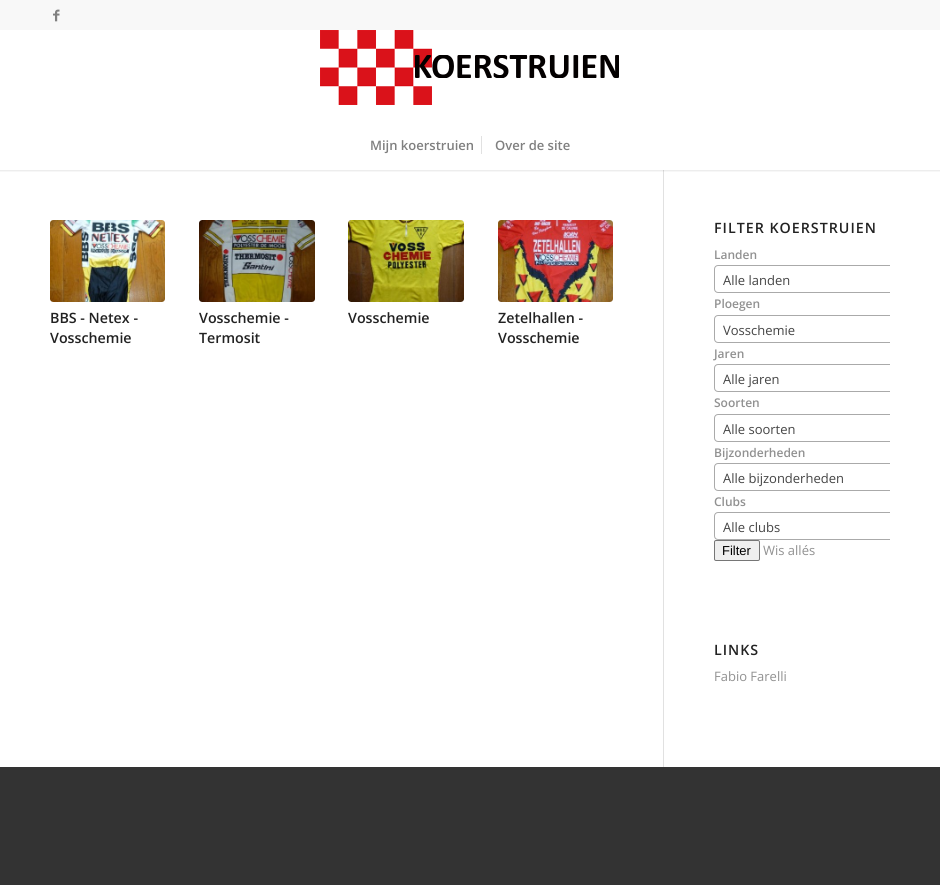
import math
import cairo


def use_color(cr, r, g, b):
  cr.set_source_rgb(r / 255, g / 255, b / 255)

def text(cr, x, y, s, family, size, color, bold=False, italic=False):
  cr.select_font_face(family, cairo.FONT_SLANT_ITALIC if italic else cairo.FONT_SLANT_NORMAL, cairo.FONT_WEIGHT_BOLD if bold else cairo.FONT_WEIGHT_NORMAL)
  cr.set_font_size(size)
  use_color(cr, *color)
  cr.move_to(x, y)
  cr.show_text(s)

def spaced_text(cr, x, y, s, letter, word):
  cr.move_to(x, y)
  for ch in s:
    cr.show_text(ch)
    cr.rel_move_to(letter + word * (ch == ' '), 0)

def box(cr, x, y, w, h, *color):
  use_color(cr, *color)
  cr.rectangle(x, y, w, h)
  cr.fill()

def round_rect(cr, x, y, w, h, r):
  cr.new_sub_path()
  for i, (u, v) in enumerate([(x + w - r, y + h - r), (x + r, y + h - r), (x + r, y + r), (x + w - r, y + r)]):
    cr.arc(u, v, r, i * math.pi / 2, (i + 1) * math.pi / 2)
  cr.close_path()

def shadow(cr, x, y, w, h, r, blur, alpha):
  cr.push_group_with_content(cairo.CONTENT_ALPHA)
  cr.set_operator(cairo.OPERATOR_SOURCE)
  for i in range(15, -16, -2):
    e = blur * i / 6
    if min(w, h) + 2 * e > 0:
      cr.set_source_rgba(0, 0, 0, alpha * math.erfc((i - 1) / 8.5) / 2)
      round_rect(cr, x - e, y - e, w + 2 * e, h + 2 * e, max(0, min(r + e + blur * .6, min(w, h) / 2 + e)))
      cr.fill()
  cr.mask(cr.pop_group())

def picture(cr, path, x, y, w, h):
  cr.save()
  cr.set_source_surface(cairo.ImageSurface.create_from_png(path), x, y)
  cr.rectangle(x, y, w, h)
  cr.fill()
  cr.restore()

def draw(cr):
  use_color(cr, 51, 51, 51)
  cr.paint()
  box(cr, 0, 30, 940, 737, 255, 255, 255)
  box(cr, 663, 170, 1, 597, 225, 225, 225)
  cr.save()
  cr.rectangle(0, 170, 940, 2)
  cr.clip()
  use_color(cr, 0, 0, 0)
  shadow(cr, -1, -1, 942, 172, 0, 1, 0.1)
  cr.restore()
  box(cr, 0, 0, 940, 30, 248, 248, 248)
  picture(cr, "img_01.png", 53, 9, 7, 13)
  picture(cr, "img_02.png", 320, 30, 299, 75)
  box(cr, 481, 136, 1, 18, 225, 225, 225)
  use_color(cr, 252, 252, 252)
  round_rect(cr, 50, 220, 115, 82, 3)
  cr.fill()
  picture(cr, "img_03.png", 50, 220, 115, 82)
  round_rect(cr, 199, 220, 116, 82, 3)
  cr.fill()
  picture(cr, "img_04.png", 199, 220, 116, 82)
  round_rect(cr, 348, 220, 116, 82, 3)
  cr.fill()
  picture(cr, "img_05.png", 348, 220, 116, 82)
  round_rect(cr, 498, 220, 115, 82, 3)
  cr.fill()
  picture(cr, "img_06.png", 498, 220, 115, 82)
  cr.save()
  cr.rectangle(664, 170, 226, 597)
  cr.clip()
  round_rect(cr, 714.5, 265.5, 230, 27, 3.5)
  use_color(cr, 170, 170, 170)
  cr.set_line_width(1)
  cr.stroke()
  round_rect(cr, 714.5, 315.5, 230, 27, 3.5)
  cr.stroke()
  round_rect(cr, 714.5, 364.5, 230, 27, 3.5)
  cr.stroke()
  round_rect(cr, 714.5, 414.5, 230, 27, 3.5)
  cr.stroke()
  round_rect(cr, 714.5, 463.5, 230, 27, 3.5)
  cr.stroke()
  round_rect(cr, 714.5, 512.5, 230, 27, 3.5)
  cr.stroke()
  cr.restore()
  use_color(cr, 239, 239, 239)
  round_rect(cr, 714.5, 540.5, 45, 20, 1.5)
  cr.fill_preserve()
  use_color(cr, 118, 118, 118)
  cr.set_line_width(1)
  cr.stroke()
  text(cr, 370, 150, "Mijn koerstruien", "Open Sans SemiBold", 13, (128, 128, 128))
  text(cr, 495, 150, "Over de site", "Open Sans SemiBold", 13, (128, 128, 128))
  text(cr, 50, 323, "BBS - Netex -", "Open Sans SemiBold", 14.25, (34, 34, 34))
  text(cr, 50, 343, "Vosschemie", "Open Sans SemiBold", 14.25, (34, 34, 34))
  text(cr, 199, 323, "Vosschemie -", "Open Sans SemiBold", 14.25, (34, 34, 34))
  text(cr, 199, 343, "Termosit", "Open Sans SemiBold", 14.25, (34, 34, 34))
  text(cr, 348, 323, "Vosschemie", "Open Sans SemiBold", 14.25, (34, 34, 34))
  text(cr, 498, 323, "Zetelhallen -", "Open Sans SemiBold", 14.25, (34, 34, 34))
  text(cr, 498, 343, "Vosschemie", "Open Sans SemiBold", 14.25, (34, 34, 34))
  spaced_text(cr, 714, 233, "FILTER KOERSTRUIEN", 1, 0)
  text(cr, 714, 259, "Landen", "Open Sans SemiBold", 12, (145, 145, 145))
  text(cr, 723, 285, "Alle landen", "Open Sans", 13, (68, 68, 68))
  text(cr, 714, 308, "Ploegen", "Open Sans SemiBold", 12, (145, 145, 145))
  text(cr, 723, 335, "Vosschemie", "Open Sans", 13, (68, 68, 68))
  text(cr, 714, 358, "Jaren", "Open Sans SemiBold", 12, (145, 145, 145))
  text(cr, 723, 384, "Alle jaren", "Open Sans", 13, (68, 68, 68))
  text(cr, 714, 407, "Soorten", "Open Sans SemiBold", 12, (145, 145, 145))
  text(cr, 723, 434, "Alle soorten", "Open Sans", 13, (68, 68, 68))
  text(cr, 714, 457, "Bijzonderheden", "Open Sans SemiBold", 12, (145, 145, 145))
  text(cr, 723, 483, "Alle bijzonderheden", "Open Sans", 13, (68, 68, 68))
  text(cr, 714, 506, "Clubs", "Open Sans SemiBold", 12, (145, 145, 145))
  text(cr, 723, 532, "Alle clubs", "Open Sans", 13, (68, 68, 68))
  text(cr, 722, 555, "Filter", "Liberation Sans", 13, (0, 0, 0))
  text(cr, 763, 555, "Wis allés", "Open Sans", 13, (145, 145, 145))
  cr.select_font_face("Open Sans SemiBold")
  cr.set_font_size(14.25)
  use_color(cr, 34, 34, 34)
  spaced_text(cr, 714, 655, "LINKS", 1, 0)
  text(cr, 714, 681, "Fabio Farelli", "Open Sans", 13, (145, 145, 145))


surface = cairo.ImageSurface(cairo.FORMAT_RGB24, 940, 885)
cr = cairo.Context(surface)
options = cairo.FontOptions()
options.set_hint_metrics(cairo.HINT_METRICS_OFF)
options.set_hint_style(cairo.HINT_STYLE_NONE)
cr.set_font_options(options)
cr.set_miter_limit(4)
draw(cr)
surface.write_to_png("out.png")
